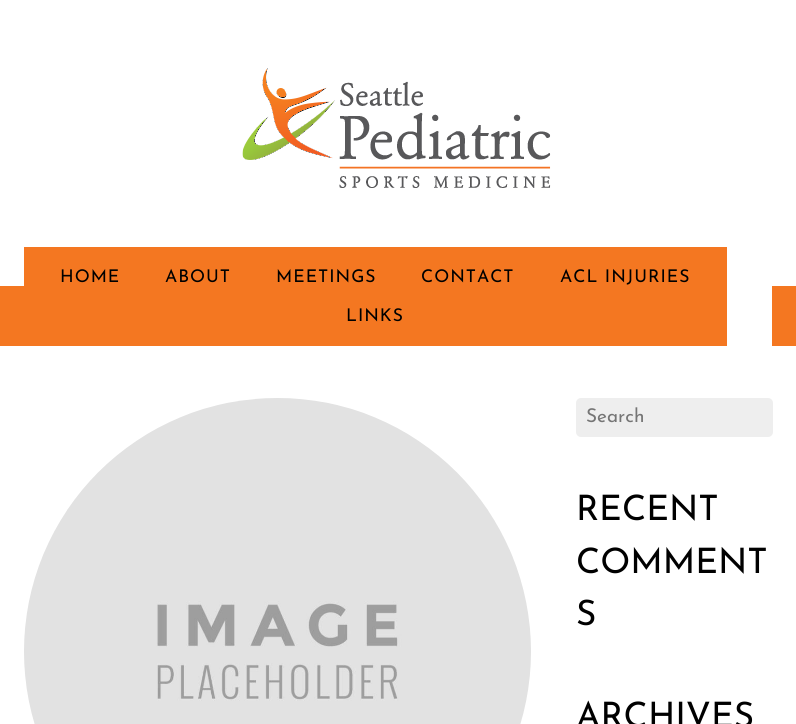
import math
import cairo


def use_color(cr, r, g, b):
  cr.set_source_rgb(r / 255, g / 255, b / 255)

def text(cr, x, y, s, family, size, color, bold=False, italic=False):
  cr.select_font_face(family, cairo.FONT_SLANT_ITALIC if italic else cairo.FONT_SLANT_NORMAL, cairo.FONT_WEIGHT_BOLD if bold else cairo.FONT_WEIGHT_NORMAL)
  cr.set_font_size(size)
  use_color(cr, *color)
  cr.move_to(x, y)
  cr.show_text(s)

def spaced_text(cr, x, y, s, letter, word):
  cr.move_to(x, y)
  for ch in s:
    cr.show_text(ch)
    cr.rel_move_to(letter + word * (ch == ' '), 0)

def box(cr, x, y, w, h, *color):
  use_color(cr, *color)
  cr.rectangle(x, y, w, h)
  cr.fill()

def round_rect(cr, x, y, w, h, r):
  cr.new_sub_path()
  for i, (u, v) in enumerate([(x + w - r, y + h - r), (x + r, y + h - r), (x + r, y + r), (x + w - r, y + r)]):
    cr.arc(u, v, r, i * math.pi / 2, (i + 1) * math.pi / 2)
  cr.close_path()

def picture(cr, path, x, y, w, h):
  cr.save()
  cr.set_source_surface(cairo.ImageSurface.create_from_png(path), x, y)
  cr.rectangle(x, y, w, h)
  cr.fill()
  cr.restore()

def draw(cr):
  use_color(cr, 255, 255, 255)
  cr.paint()
  box(cr, 0, 286, 796, 60, 244, 119, 33)
  box(cr, 24, 286, 748, 60, 255, 255, 255)
  picture(cr, "img_01.png", 242, 68, 309, 120)
  box(cr, 24, 247, 703, 99, 244, 119, 33)
  picture(cr, "img_02.png", 24, 398, 507, 326)
  use_color(cr, 238, 238, 238)
  round_rect(cr, 576, 398, 197, 39, 5)
  cr.fill()
  cr.select_font_face("Josefin Sans Thin")
  cr.set_font_size(17.5)
  use_color(cr, 0, 0, 0)
  spaced_text(cr, 60, 282, "HOME", 1, 0)
  spaced_text(cr, 165, 282, "ABOUT", 1, 0)
  spaced_text(cr, 276, 282, "MEETINGS", 1, 0)
  spaced_text(cr, 421, 282, "CONTACT", 1, 0)
  spaced_text(cr, 560, 282, "ACL INJURIES", 1, 0)
  spaced_text(cr, 346, 321, "LINKS", 1, 0)
  text(cr, 586, 422, "Search", "Josefin Sans Thin", 19, (117, 117, 117))
  text(cr, 576, 520, "RECENT", "Josefin Sans Thin", 35, (0, 0, 0))
  text(cr, 576, 573, "COMMENT", "Josefin Sans Thin", 35, (0, 0, 0))
  text(cr, 576, 625, "S", "Josefin Sans Thin", 35, (0, 0, 0))
  text(cr, 576, 727, "ARCHIVES", "Josefin Sans Thin", 35, (0, 0, 0))


surface = cairo.ImageSurface(cairo.FORMAT_RGB24, 796, 724)
cr = cairo.Context(surface)
options = cairo.FontOptions()
options.set_hint_metrics(cairo.HINT_METRICS_OFF)
options.set_hint_style(cairo.HINT_STYLE_NONE)
cr.set_font_options(options)
cr.set_miter_limit(4)
draw(cr)
surface.write_to_png("out.png")
